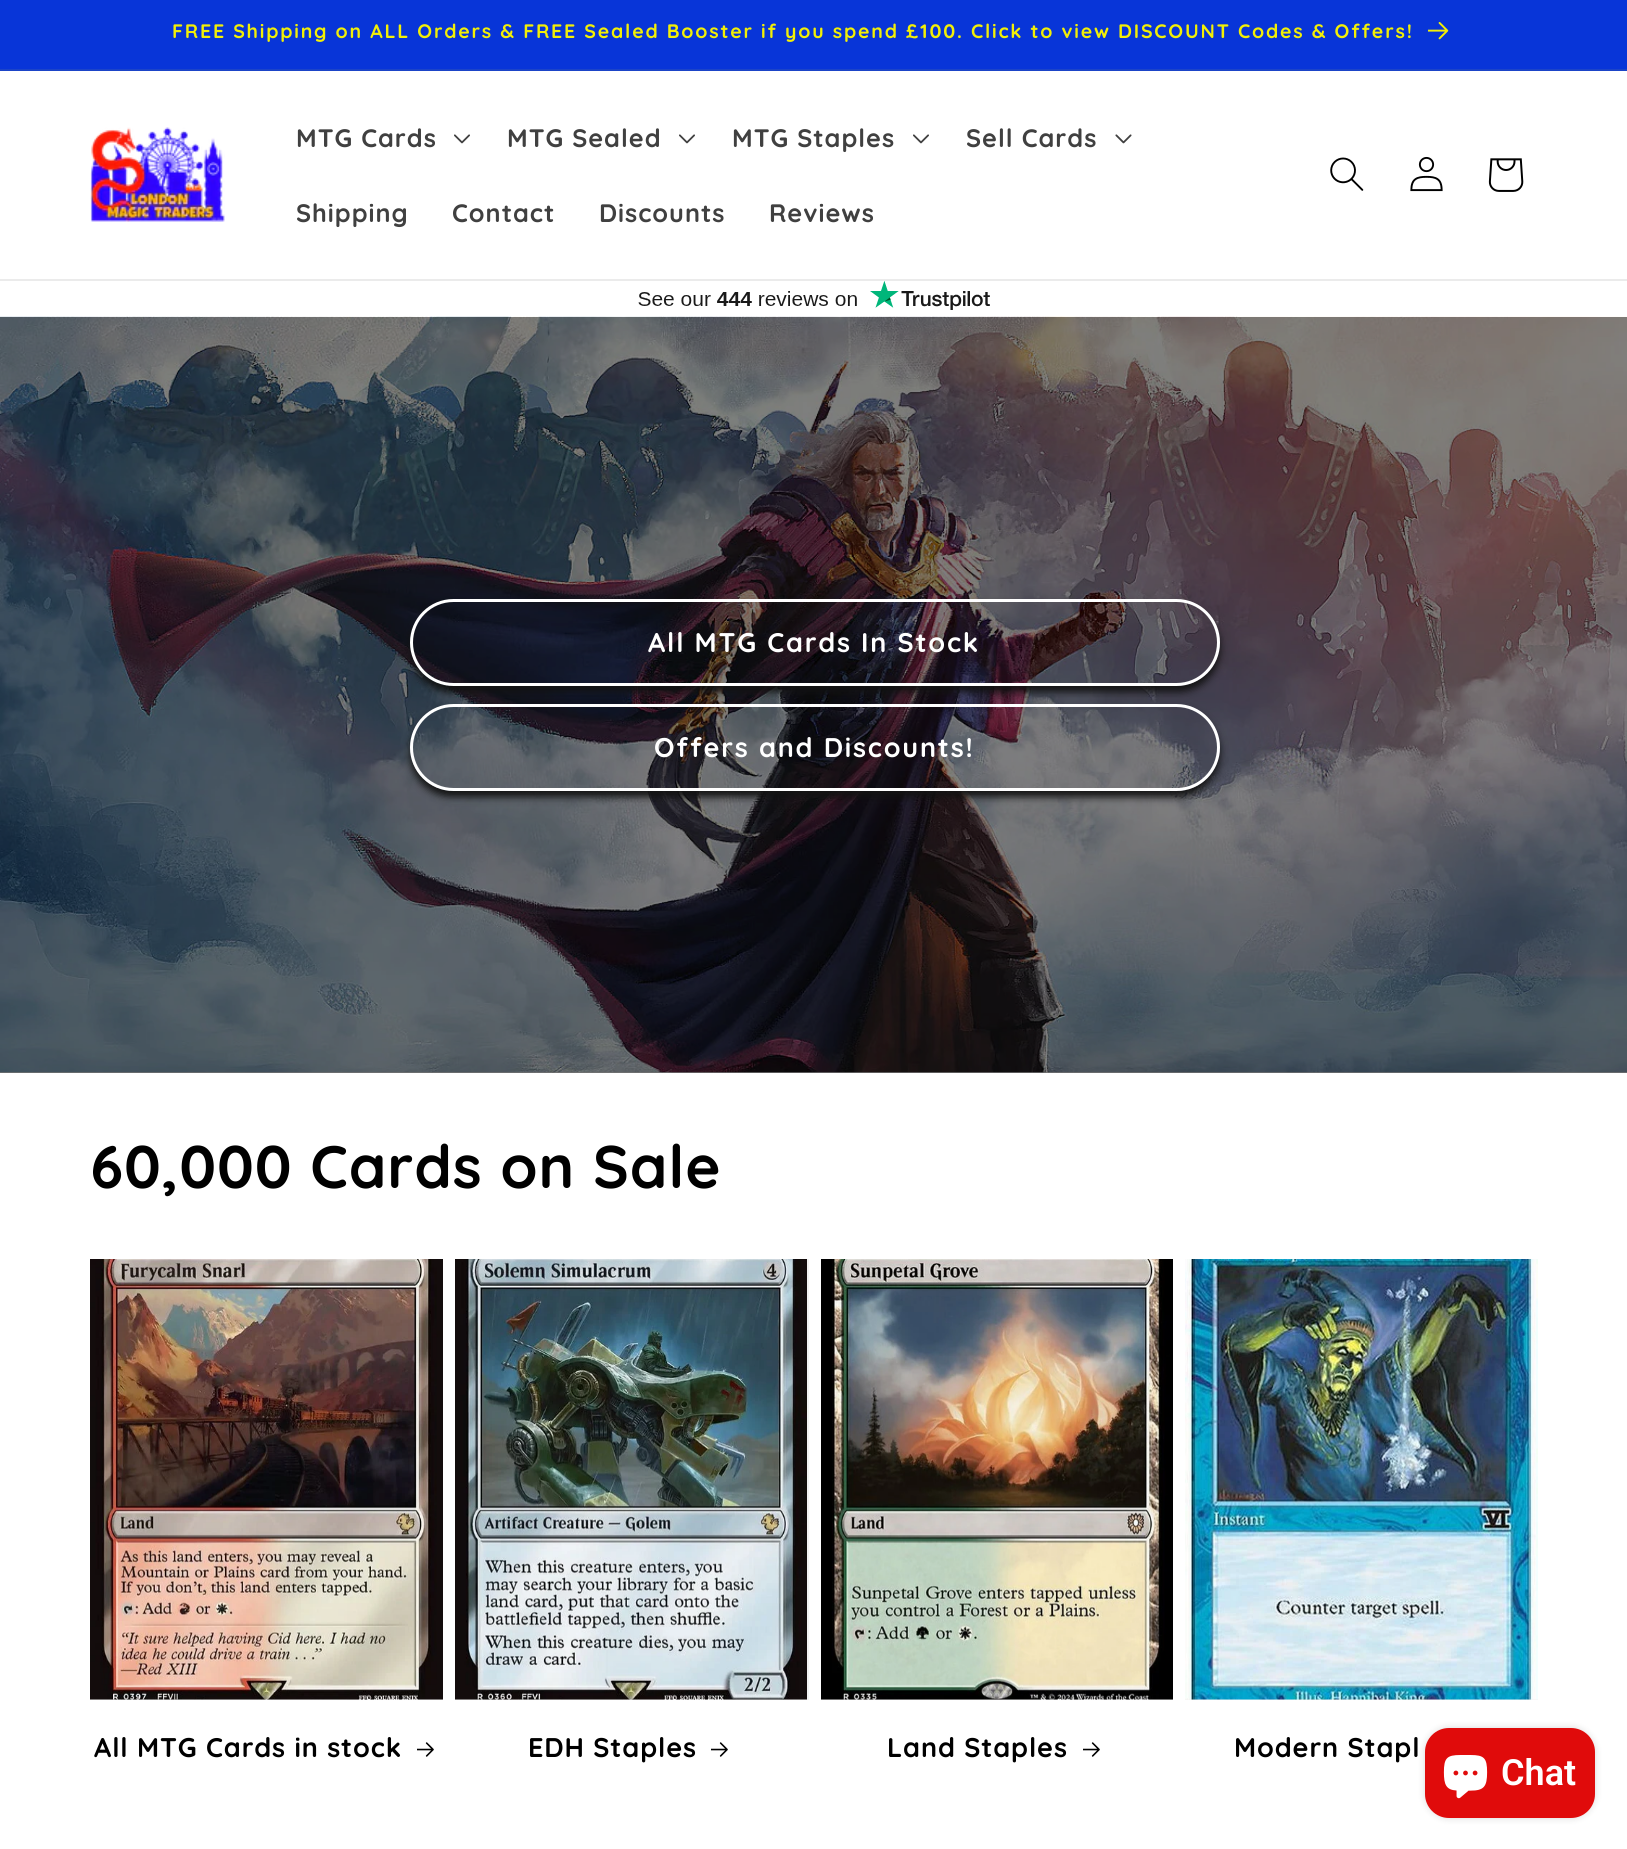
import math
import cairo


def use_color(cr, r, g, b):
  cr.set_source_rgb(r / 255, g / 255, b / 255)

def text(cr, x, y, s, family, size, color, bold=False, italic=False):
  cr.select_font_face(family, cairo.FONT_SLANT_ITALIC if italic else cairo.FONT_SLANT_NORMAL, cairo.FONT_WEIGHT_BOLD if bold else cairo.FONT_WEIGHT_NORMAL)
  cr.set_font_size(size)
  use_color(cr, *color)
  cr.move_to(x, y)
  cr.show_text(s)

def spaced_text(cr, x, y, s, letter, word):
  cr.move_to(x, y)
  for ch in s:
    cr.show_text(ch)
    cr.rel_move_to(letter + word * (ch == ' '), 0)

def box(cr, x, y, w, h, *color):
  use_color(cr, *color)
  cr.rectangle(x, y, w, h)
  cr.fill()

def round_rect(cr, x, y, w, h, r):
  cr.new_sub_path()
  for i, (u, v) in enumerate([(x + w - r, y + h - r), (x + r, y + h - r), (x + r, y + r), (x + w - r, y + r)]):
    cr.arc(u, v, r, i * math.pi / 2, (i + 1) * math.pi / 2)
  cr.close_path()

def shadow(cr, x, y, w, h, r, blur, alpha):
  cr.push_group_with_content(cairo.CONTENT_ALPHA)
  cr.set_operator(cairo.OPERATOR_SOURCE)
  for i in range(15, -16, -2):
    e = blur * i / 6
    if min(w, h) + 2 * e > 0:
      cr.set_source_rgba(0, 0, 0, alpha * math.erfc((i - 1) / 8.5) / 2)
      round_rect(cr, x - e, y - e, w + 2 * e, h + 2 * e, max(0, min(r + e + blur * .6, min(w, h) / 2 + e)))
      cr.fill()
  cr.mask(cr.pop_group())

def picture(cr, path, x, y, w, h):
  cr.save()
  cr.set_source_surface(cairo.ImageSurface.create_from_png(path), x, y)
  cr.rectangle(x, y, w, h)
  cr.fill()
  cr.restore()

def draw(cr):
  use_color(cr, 255, 255, 255)
  cr.paint()
  box(cr, 0, 0, 1627, 69, 8, 53, 216)
  box(cr, 0, 69, 1627, 2, 27, 68, 199)
  picture(cr, "img_01.png", 1428, 22, 21, 18)
  box(cr, 0, 279, 1627, 2, 235, 235, 235)
  picture(cr, "img_02.png", 90, 127, 135, 95)
  picture(cr, "img_03.png", 454, 134, 16, 10)
  picture(cr, "img_03.png", 679, 134, 16, 10)
  picture(cr, "img_03.png", 913, 134, 16, 10)
  picture(cr, "img_04.png", 1115, 134, 17, 10)
  picture(cr, "img_05.png", 1330, 157, 34, 34)
  picture(cr, "img_06.png", 1410, 156, 33, 36)
  picture(cr, "img_07.png", 1488, 158, 36, 34)
  picture(cr, "img_08.png", 638, 281, 352, 29)
  box(cr, 0, 1072, 1627, 1, 115, 115, 115)
  picture(cr, "img_09.png", 0, 316, 1627, 757)
  cr.save()
  cr.set_fill_rule(cairo.FILL_RULE_EVEN_ODD)
  cr.new_path()
  cr.move_to(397, 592)
  cr.line_to(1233, 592)
  cr.line_to(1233, 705)
  cr.line_to(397, 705)
  cr.close_path()
  cr.move_to(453.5, 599)
  cr.line_to(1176.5, 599)
  cr.curve_to(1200.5, 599, 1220, 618.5, 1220, 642.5)
  cr.curve_to(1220, 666.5, 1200.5, 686, 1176.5, 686)
  cr.line_to(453.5, 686)
  cr.curve_to(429.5, 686, 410, 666.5, 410, 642.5)
  cr.curve_to(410, 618.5, 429.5, 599, 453.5, 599)
  cr.close_path()
  cr.clip()
  use_color(cr, 18, 18, 18)
  shadow(cr, 410, 605, 810, 87, 43.5, 4, 1)
  cr.restore()
  round_rect(cr, 411.5, 600.5, 807, 84, 42)
  use_color(cr, 255, 255, 255)
  cr.set_line_width(3)
  cr.stroke()
  cr.save()
  cr.set_fill_rule(cairo.FILL_RULE_EVEN_ODD)
  cr.new_path()
  cr.move_to(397, 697)
  cr.line_to(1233, 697)
  cr.line_to(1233, 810)
  cr.line_to(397, 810)
  cr.close_path()
  cr.move_to(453.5, 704)
  cr.line_to(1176.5, 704)
  cr.curve_to(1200.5, 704, 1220, 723.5, 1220, 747.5)
  cr.curve_to(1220, 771.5, 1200.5, 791, 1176.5, 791)
  cr.line_to(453.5, 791)
  cr.curve_to(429.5, 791, 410, 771.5, 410, 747.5)
  cr.curve_to(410, 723.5, 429.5, 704, 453.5, 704)
  cr.close_path()
  cr.clip()
  use_color(cr, 18, 18, 18)
  shadow(cr, 410, 710, 810, 87, 43.5, 4, 1)
  cr.restore()
  round_rect(cr, 411.5, 705.5, 807, 84, 42)
  cr.stroke()
  box(cr, 90, 1699, 353, 1, 243, 243, 243)
  picture(cr, "img_10.png", 90, 1259, 353, 441)
  picture(cr, "img_11.png", 417, 1742, 17, 15)
  box(cr, 455, 1259, 354, 441, 243, 243, 243)
  picture(cr, "img_12.png", 455, 1259, 352, 441)
  picture(cr, "img_11.png", 711, 1742, 17, 15)
  box(cr, 821, 1699, 352, 1, 243, 243, 243)
  picture(cr, "img_13.png", 821, 1259, 352, 441)
  picture(cr, "img_11.png", 1083, 1742, 17, 15)
  box(cr, 1185, 1699, 353, 1, 243, 243, 243)
  picture(cr, "img_14.png", 1185, 1259, 353, 441)
  use_color(cr, 0, 0, 0)
  shadow(cr, 1425, 1728, 170, 90, 24, 4, 0.15)
  use_color(cr, 224, 11, 11)
  round_rect(cr, 1425, 1728, 170, 90, 24)
  cr.fill()
  picture(cr, "img_15.png", 1443, 1755, 45, 44)
  cr.select_font_face("Quicksand", cairo.FONT_SLANT_NORMAL, cairo.FONT_WEIGHT_BOLD)
  cr.set_font_size(19.5)
  use_color(cr, 242, 239, 6)
  spaced_text(cr, 172, 38, "FREE Shipping on ALL Orders & FREE Sealed Booster if you spend £100. Click to view DISCOUNT Codes & Offers!", 1.8, 0)
  cr.set_font_size(25.25)
  use_color(cr, 64, 64, 64)
  spaced_text(cr, 296, 147, "MTG Cards", 1, 0)
  spaced_text(cr, 507, 147, "MTG Sealed", 1, 0)
  spaced_text(cr, 732, 147, "MTG Staples", 1, 0)
  spaced_text(cr, 966, 147, "Sell Cards", 1, 0)
  spaced_text(cr, 296, 222, "Shipping", 1, 0)
  spaced_text(cr, 452, 222, "Contact", 1, 0)
  spaced_text(cr, 599, 222, "Discounts", 1, 0)
  spaced_text(cr, 769, 222, "Reviews", 1, 0)
  cr.set_font_size(27)
  use_color(cr, 255, 255, 255)
  spaced_text(cr, 648, 652, "All MTG Cards In Stock", 1.8, 0)
  spaced_text(cr, 654, 757, "Offers and Discounts!", 1.8, 0)
  cr.set_font_size(60)
  use_color(cr, 0, 0, 0)
  spaced_text(cr, 90, 1188, "60,000 Cards on Sale", 0.9, 0)
  cr.set_font_size(27)
  spaced_text(cr, 94, 1757, "All MTG Cards in stock", 0.9, 0)
  spaced_text(cr, 528, 1757, "EDH Staples", 0.9, 0)
  spaced_text(cr, 887, 1757, "Land Staples", 0.9, 0)
  spaced_text(cr, 1234, 1757, "Modern Stapl", 0.9, 0)
  text(cr, 1501, 1785, "Chat", "Roboto SemiBold", 36, (255, 255, 255))


surface = cairo.ImageSurface(cairo.FORMAT_RGB24, 1627, 1849)
cr = cairo.Context(surface)
options = cairo.FontOptions()
options.set_hint_metrics(cairo.HINT_METRICS_OFF)
options.set_hint_style(cairo.HINT_STYLE_NONE)
cr.set_font_options(options)
cr.set_miter_limit(4)
draw(cr)
surface.write_to_png("out.png")
